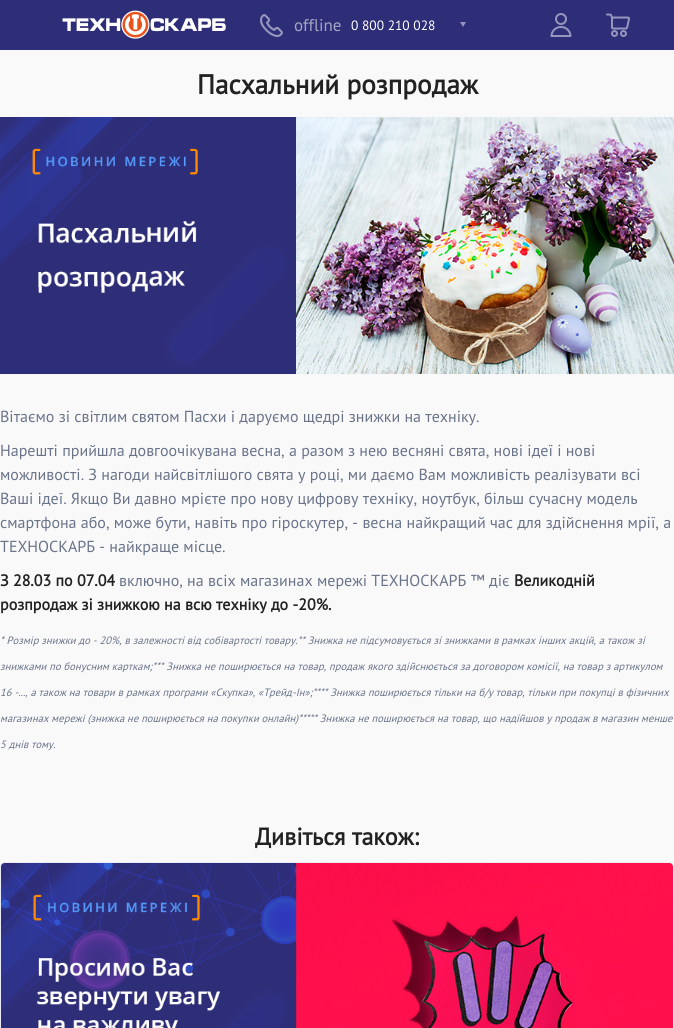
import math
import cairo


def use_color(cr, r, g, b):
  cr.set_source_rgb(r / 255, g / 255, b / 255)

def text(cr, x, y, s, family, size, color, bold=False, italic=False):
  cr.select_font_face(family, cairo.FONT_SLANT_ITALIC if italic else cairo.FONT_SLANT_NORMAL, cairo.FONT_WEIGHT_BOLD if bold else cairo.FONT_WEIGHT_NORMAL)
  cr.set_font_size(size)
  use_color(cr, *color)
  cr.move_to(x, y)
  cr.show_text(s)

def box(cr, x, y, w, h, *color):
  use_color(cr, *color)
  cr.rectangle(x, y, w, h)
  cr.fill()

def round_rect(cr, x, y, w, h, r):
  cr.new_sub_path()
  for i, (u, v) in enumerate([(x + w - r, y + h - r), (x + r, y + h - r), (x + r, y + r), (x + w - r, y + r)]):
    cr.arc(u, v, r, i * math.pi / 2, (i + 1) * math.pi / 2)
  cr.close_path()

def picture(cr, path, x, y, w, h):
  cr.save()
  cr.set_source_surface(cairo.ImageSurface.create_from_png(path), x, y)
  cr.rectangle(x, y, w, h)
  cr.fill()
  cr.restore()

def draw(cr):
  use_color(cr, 250, 249, 250)
  cr.paint()
  box(cr, 0, 0, 674, 50, 46, 45, 120)
  picture(cr, "img_01.png", 62, 10, 164, 29)
  picture(cr, "img_02.png", 260, 14, 23, 23)
  use_color(cr, 150, 143, 195)
  cr.new_path()
  cr.move_to(460, 22)
  cr.line_to(466, 22)
  cr.line_to(463, 27)
  cr.close_path()
  cr.fill()
  picture(cr, "img_03.png", 550, 13, 22, 24)
  picture(cr, "img_04.png", 606, 13, 24, 24)
  picture(cr, "img_05.png", 0, 117, 674, 257)
  use_color(cr, 255, 255, 255)
  round_rect(cr, 0.5, 862.5, 673, 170, 3.5)
  cr.fill_preserve()
  use_color(cr, 235, 236, 243)
  cr.set_line_width(1)
  cr.stroke()
  picture(cr, "img_06.png", 1, 863, 672, 165)
  text(cr, 294, 31, "offline", "PT Sans", 17, (163, 167, 193))
  text(cr, 351, 30, "0 800 210 028", "PT Sans", 13.5, (255, 255, 255))
  text(cr, 197, 94, "Пасхальний розпродаж", "PT Sans", 27.25, (34, 34, 34), bold=True)
  text(cr, 0, 422, "Вітаємо зі світлим святом Пасхи і даруємо щедрі знижки на техніку.", "PT Sans", 16, (105, 116, 137))
  text(cr, 0, 456, "Нарешті прийшла довгоочікувана весна, а разом з нею весняні свята, нові ідеї і нові", "PT Sans", 16, (105, 116, 137))
  text(cr, 0, 480, "можливості. З нагоди найсвітлішого свята у році, ми даємо Вам можливість реалізувати всі", "PT Sans", 16, (105, 116, 137))
  text(cr, 0, 504, "Ваші ідеї. Якщо Ви давно мрієте про нову цифрову техніку, ноутбук, більш сучасну модель", "PT Sans", 16, (105, 116, 137))
  text(cr, 0, 528, "смартфона або, може бути, навіть про гіроскутер, - весна найкращий час для здійснення мрії, а", "PT Sans", 16, (105, 116, 137))
  text(cr, 0, 552, "ТЕХНОСКАРБ - найкраще місце.", "PT Sans", 16, (105, 116, 137))
  text(cr, 0, 586, "З 28.03 по 07.04", "PT Sans", 16, (34, 34, 34), bold=True)
  text(cr, 119, 586, "включно, на всіх магазинах мережі ТЕХНОСКАРБ ™ діє", "PT Sans", 16, (105, 116, 137))
  text(cr, 514, 586, "Великодній", "PT Sans", 16, (34, 34, 34), bold=True)
  text(cr, 0, 610, "розпродаж зі знижкою на всю техніку до -20%.", "PT Sans", 16, (34, 34, 34), bold=True)
  text(cr, 0, 644, "* Розмір знижки до - 20%, в залежності від собівартості товару.** Знижка не підсумовується зі знижками в рамках інших акцій, а також зі", "PT Sans", 10.67, (105, 116, 137), italic=True)
  text(cr, 0, 670, "знижками по бонусним карткам;*** Знижка не поширюється на товар, продаж якого здійснюється за договором комісії, на товар з артикулом", "PT Sans", 10.67, (105, 116, 137), italic=True)
  text(cr, 0, 696, "16 -..., а також на товари в рамках програми «Скупка», «Трейд-Ін»;**** Знижка поширюється тільки на б/у товар, тільки при покупці в фізичних", "PT Sans", 10.67, (105, 116, 137), italic=True)
  text(cr, 0, 722, "магазинах мережі (знижка не поширюється на покупки онлайн)***** Знижка не поширюється на товар, що надійшов у продаж в магазин менше", "PT Sans", 10.67, (105, 116, 137), italic=True)
  text(cr, 0, 748, "5 днів тому.", "PT Sans", 10.67, (105, 116, 137), italic=True)
  text(cr, 255, 845, "Дивіться також:", "PT Sans", 24, (34, 34, 34), bold=True)


surface = cairo.ImageSurface(cairo.FORMAT_RGB24, 674, 1028)
cr = cairo.Context(surface)
options = cairo.FontOptions()
options.set_hint_metrics(cairo.HINT_METRICS_OFF)
options.set_hint_style(cairo.HINT_STYLE_NONE)
cr.set_font_options(options)
cr.set_miter_limit(4)
draw(cr)
surface.write_to_png("out.png")
